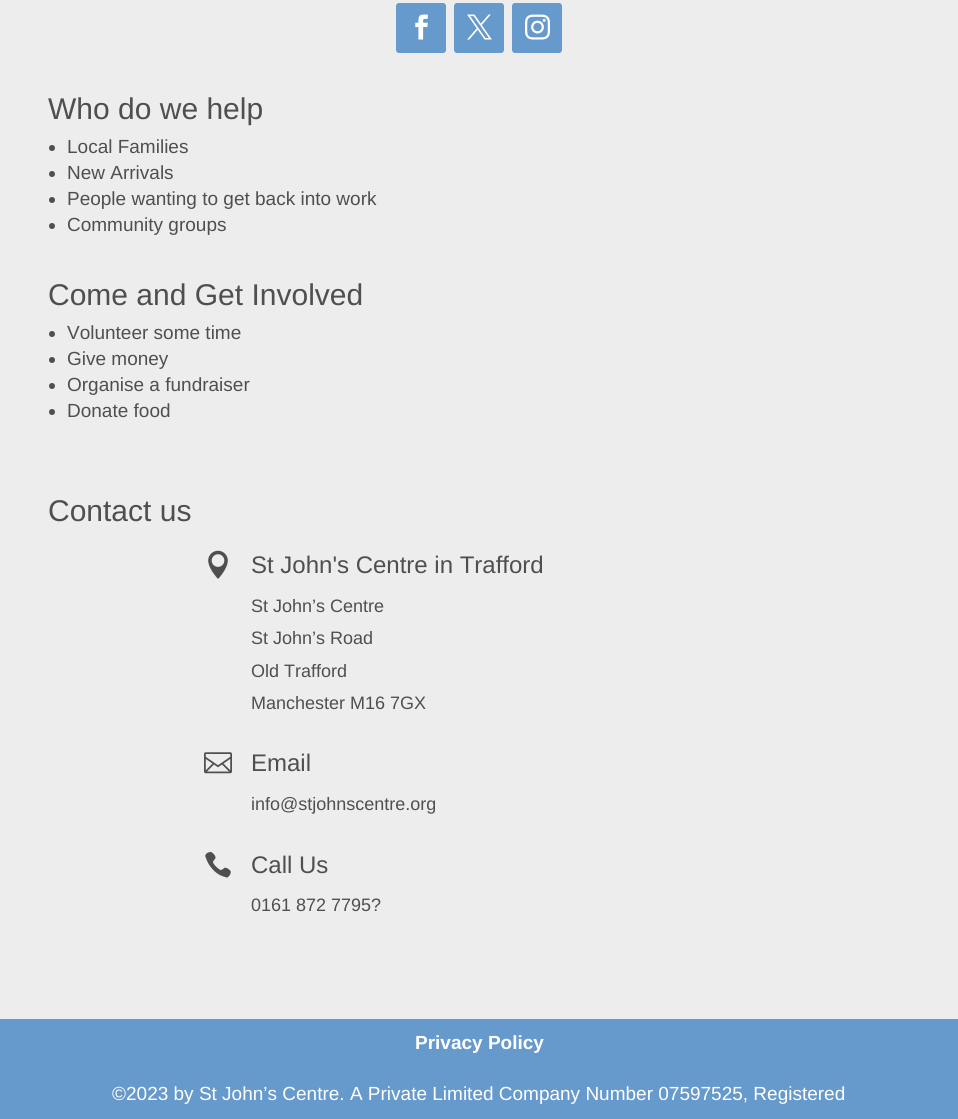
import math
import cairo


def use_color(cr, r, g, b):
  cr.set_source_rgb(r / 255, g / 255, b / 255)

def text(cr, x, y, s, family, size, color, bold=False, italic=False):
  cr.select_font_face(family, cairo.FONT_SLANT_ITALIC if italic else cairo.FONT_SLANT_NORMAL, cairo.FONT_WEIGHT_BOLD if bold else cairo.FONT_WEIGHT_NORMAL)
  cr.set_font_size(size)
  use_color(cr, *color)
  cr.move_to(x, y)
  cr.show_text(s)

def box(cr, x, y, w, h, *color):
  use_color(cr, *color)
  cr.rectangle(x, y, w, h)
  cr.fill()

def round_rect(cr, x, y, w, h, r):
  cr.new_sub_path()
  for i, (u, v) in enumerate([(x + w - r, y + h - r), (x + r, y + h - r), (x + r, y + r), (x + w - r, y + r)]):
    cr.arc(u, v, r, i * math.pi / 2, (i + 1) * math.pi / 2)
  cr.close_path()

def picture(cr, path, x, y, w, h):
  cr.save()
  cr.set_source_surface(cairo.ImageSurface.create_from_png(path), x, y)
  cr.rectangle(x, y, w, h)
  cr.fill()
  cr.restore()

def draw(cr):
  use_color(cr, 102, 153, 204)
  cr.paint()
  box(cr, 0, 0, 958, 1019, 237, 237, 237)
  use_color(cr, 102, 153, 204)
  round_rect(cr, 396, 3, 50, 50, 3)
  cr.fill()
  picture(cr, "img_01.png", 415, 14, 13, 26)
  round_rect(cr, 454, 3, 50, 50, 3)
  cr.fill()
  picture(cr, "img_02.png", 467, 14, 25, 26)
  round_rect(cr, 512, 3, 50, 50, 3)
  cr.fill()
  picture(cr, "img_03.png", 525, 14, 25, 26)
  use_color(cr, 79, 79, 79)
  cr.arc(52, 148, 3, 0, 2 * math.pi)
  cr.fill()
  cr.arc(52, 174, 3, 0, 2 * math.pi)
  cr.fill()
  cr.arc(52, 200, 3, 0, 2 * math.pi)
  cr.fill()
  cr.arc(52, 226, 3, 0, 2 * math.pi)
  cr.fill()
  cr.arc(52, 334, 3, 0, 2 * math.pi)
  cr.fill()
  cr.arc(52, 360, 3, 0, 2 * math.pi)
  cr.fill()
  cr.arc(52, 386, 3, 0, 2 * math.pi)
  cr.fill()
  cr.arc(52, 412, 3, 0, 2 * math.pi)
  cr.fill()
  picture(cr, "img_04.png", 208, 550, 20, 29)
  picture(cr, "img_05.png", 204, 752, 28, 22)
  picture(cr, "img_06.png", 205, 851, 26, 27)
  text(cr, 48, 119, "Who do we help", "Liberation Sans", 30, (79, 79, 79))
  text(cr, 67, 153, "Local Families", "Liberation Sans", 19, (79, 79, 79))
  text(cr, 67, 179, "New Arrivals", "Liberation Sans", 19, (79, 79, 79))
  text(cr, 67, 205, "People wanting to get back into work", "Liberation Sans", 19, (79, 79, 79))
  text(cr, 67, 231, "Community groups", "Liberation Sans", 19, (79, 79, 79))
  text(cr, 48, 305, "Come and Get Involved", "Liberation Sans", 30, (79, 79, 79))
  text(cr, 67, 339, "Volunteer some time", "Liberation Sans", 19, (79, 79, 79))
  text(cr, 67, 365, "Give money", "Liberation Sans", 19, (79, 79, 79))
  text(cr, 67, 391, "Organise a fundraiser", "Liberation Sans", 19, (79, 79, 79))
  text(cr, 67, 417, "Donate food", "Liberation Sans", 19, (79, 79, 79))
  text(cr, 48, 521, "Contact us", "Liberation Sans", 30, (79, 79, 79))
  text(cr, 251, 573, "St John's Centre in Trafford", "Liberation Sans", 24, (79, 79, 79))
  text(cr, 251, 612, "St John’s Centre", "Liberation Sans", 18, (79, 79, 79))
  text(cr, 251, 644, "St John’s Road", "Liberation Sans", 18, (79, 79, 79))
  text(cr, 251, 677, "Old Trafford", "Liberation Sans", 18, (79, 79, 79))
  text(cr, 251, 709, "Manchester M16 7GX", "Liberation Sans", 18, (79, 79, 79))
  text(cr, 251, 771, "Email", "Liberation Sans", 24, (79, 79, 79))
  text(cr, 251, 810, "info@stjohnscentre.org", "Liberation Sans", 18, (79, 79, 79))
  text(cr, 251, 873, "Call Us", "Liberation Sans", 24, (79, 79, 79))
  text(cr, 251, 911, "0161 872 7795?", "Liberation Sans", 18, (79, 79, 79))
  text(cr, 415, 1049, "Privacy Policy", "Liberation Sans", 19, (255, 255, 255), bold=True)
  text(cr, 112, 1100, "©2023 by St John’s Centre. A Private Limited Company Number 07597525, Registered", "Liberation Sans", 19, (255, 255, 255))


surface = cairo.ImageSurface(cairo.FORMAT_RGB24, 958, 1119)
cr = cairo.Context(surface)
options = cairo.FontOptions()
options.set_hint_metrics(cairo.HINT_METRICS_OFF)
options.set_hint_style(cairo.HINT_STYLE_NONE)
cr.set_font_options(options)
cr.set_miter_limit(4)
draw(cr)
surface.write_to_png("out.png")
